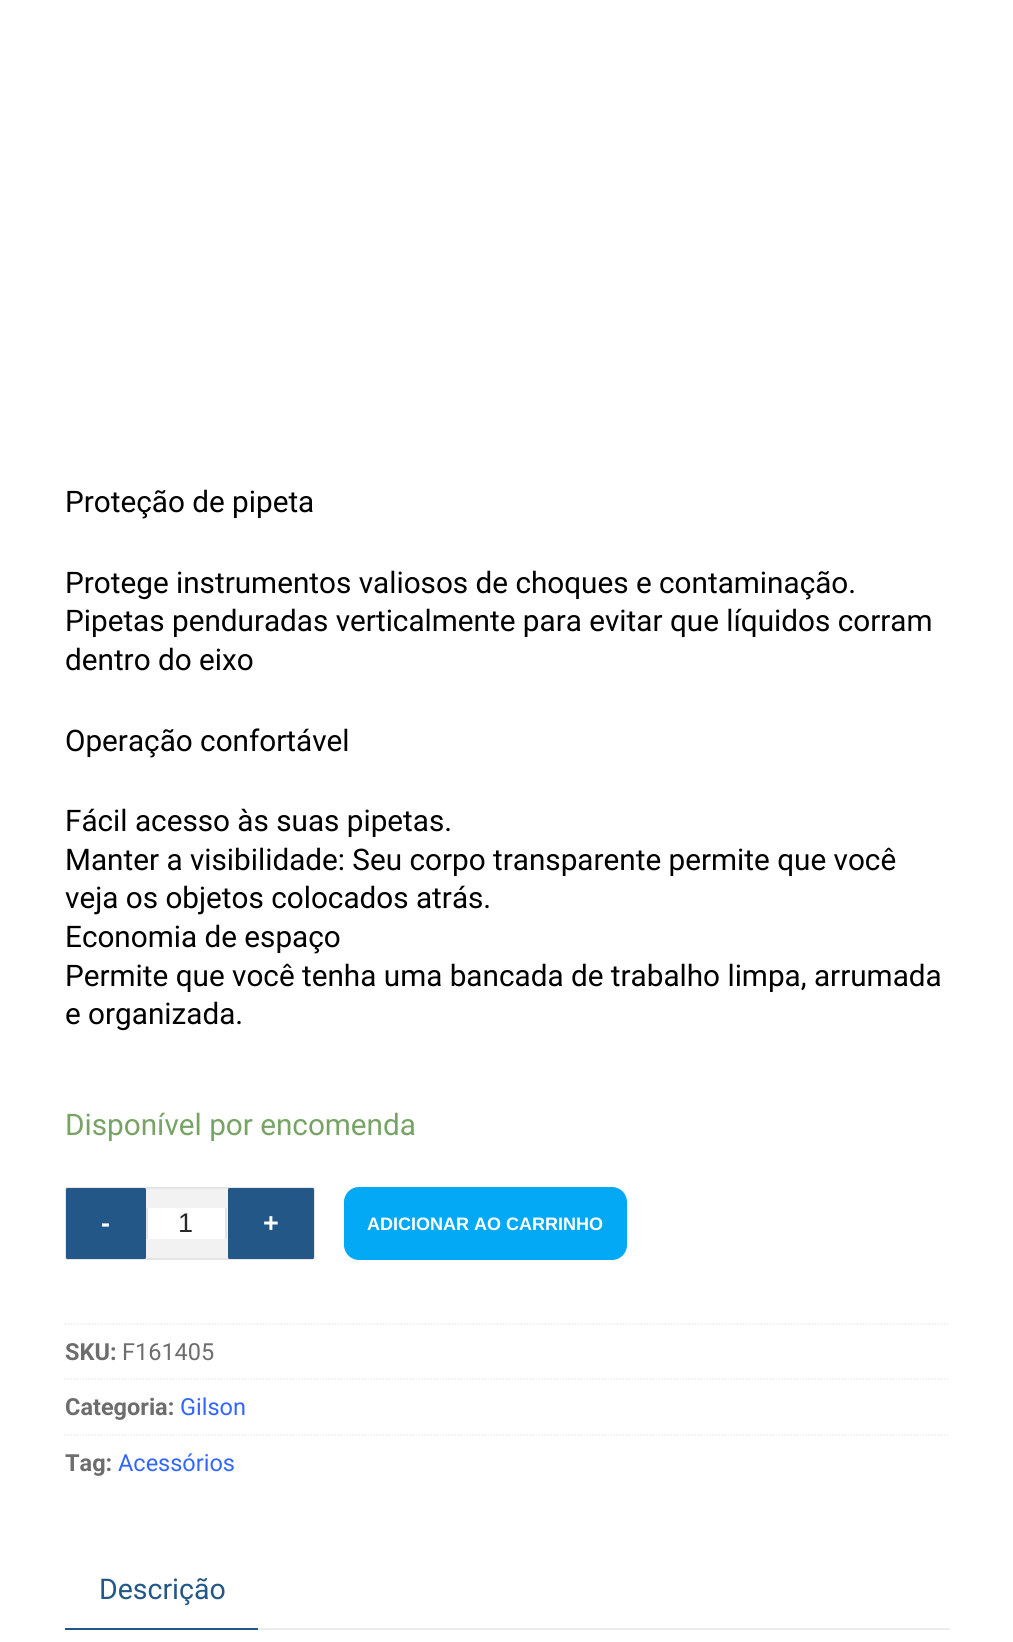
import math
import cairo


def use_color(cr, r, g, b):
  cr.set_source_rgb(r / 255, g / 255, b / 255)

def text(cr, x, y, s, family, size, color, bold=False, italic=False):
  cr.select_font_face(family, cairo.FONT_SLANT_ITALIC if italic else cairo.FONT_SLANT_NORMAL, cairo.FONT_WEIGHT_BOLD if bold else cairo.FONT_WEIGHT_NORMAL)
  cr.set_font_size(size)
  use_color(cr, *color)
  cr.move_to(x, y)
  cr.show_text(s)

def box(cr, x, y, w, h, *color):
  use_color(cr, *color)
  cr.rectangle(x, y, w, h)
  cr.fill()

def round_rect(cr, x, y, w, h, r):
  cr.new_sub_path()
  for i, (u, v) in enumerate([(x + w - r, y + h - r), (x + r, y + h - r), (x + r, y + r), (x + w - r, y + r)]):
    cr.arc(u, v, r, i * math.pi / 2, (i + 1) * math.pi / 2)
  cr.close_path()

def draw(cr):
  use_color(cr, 255, 255, 255)
  cr.paint()
  use_color(cr, 242, 242, 242)
  round_rect(cr, 66, 1188, 248, 71, 0.5)
  cr.fill_preserve()
  use_color(cr, 229, 229, 229)
  cr.stroke()
  use_color(cr, 35, 87, 135)
  round_rect(cr, 66, 1188, 80, 71, 1.5)
  cr.fill()
  box(cr, 148, 1208, 77, 31, 255, 255, 255)
  box(cr, 225, 1208, 2, 31, 229, 229, 229)
  box(cr, 146, 1208, 2, 31, 229, 229, 229)
  use_color(cr, 35, 87, 135)
  round_rect(cr, 228, 1188, 86, 71, 1.5)
  cr.fill()
  use_color(cr, 3, 169, 244)
  round_rect(cr, 344, 1187, 283, 73, 15)
  cr.fill()
  cr.new_path()
  cr.move_to(64.5, 1324)
  cr.line_to(949.5, 1324)
  use_color(cr, 234, 236, 238)
  cr.set_line_width(1.5)
  cr.set_dash([1.5, 1.5])
  cr.stroke()
  cr.new_path()
  cr.move_to(64.5, 1379)
  cr.line_to(949.5, 1379)
  cr.stroke()
  cr.new_path()
  cr.move_to(64.5, 1435)
  cr.line_to(949.5, 1435)
  cr.stroke()
  box(cr, 258, 1628, 692, 2, 234, 236, 238)
  box(cr, 65, 1628, 193, 2, 35, 87, 135)
  text(cr, 65, 512, "Proteção de pipeta", "Roboto", 29.7, (0, 0, 0))
  text(cr, 65, 593, "Protege instrumentos valiosos de choques e contaminação.", "Roboto", 29.7, (0, 0, 0))
  text(cr, 65, 631, "Pipetas penduradas verticalmente para evitar que líquidos corram", "Roboto", 29.7, (0, 0, 0))
  text(cr, 65, 670, "dentro do eixo", "Roboto", 29.7, (0, 0, 0))
  text(cr, 65, 751, "Operação confortável", "Roboto", 29.7, (0, 0, 0))
  text(cr, 65, 831, "Fácil acesso às suas pipetas.", "Roboto", 29.7, (0, 0, 0))
  text(cr, 65, 870, "Manter a visibilidade: Seu corpo transparente permite que você", "Roboto", 29.7, (0, 0, 0))
  text(cr, 65, 908, "veja os objetos colocados atrás.", "Roboto", 29.7, (0, 0, 0))
  text(cr, 65, 947, "Economia de espaço", "Roboto", 29.7, (0, 0, 0))
  text(cr, 65, 986, "Permite que você tenha uma bancada de trabalho limpa, arrumada", "Roboto", 29.7, (0, 0, 0))
  text(cr, 65, 1024, "e organizada.", "Roboto", 29.7, (0, 0, 0))
  text(cr, 65, 1135, "Disponível por encomenda", "Roboto", 29.7, (119, 164, 100))
  text(cr, 101, 1232, "-", "Liberation Sans", 27, (255, 255, 255), bold=True)
  text(cr, 178, 1232, "1", "Liberation Sans", 27, (40, 40, 40))
  text(cr, 263, 1232, "+", "Liberation Sans", 27, (255, 255, 255), bold=True)
  text(cr, 367, 1230, "ADICIONAR AO CARRINHO", "Liberation Sans", 18, (255, 255, 255), bold=True)
  text(cr, 65, 1360, "SKU:", "Roboto", 23.5, (109, 109, 109), bold=True)
  text(cr, 122, 1360, "F161405", "Roboto", 23.5, (109, 109, 109))
  text(cr, 65, 1415, "Categoria:", "Roboto", 23.5, (109, 109, 109), bold=True)
  text(cr, 180, 1415, "Gilson", "Roboto", 23.5, (51, 102, 255))
  text(cr, 65, 1471, "Tag:", "Roboto", 23.5, (109, 109, 109), bold=True)
  text(cr, 118, 1471, "Acessórios", "Roboto", 23.5, (51, 102, 255))
  text(cr, 99, 1599, "Descrição", "Roboto", 28.5, (35, 87, 135))


surface = cairo.ImageSurface(cairo.FORMAT_RGB24, 1013, 1642)
cr = cairo.Context(surface)
options = cairo.FontOptions()
options.set_hint_metrics(cairo.HINT_METRICS_OFF)
options.set_hint_style(cairo.HINT_STYLE_NONE)
cr.set_font_options(options)
cr.set_miter_limit(4)
draw(cr)
surface.write_to_png("out.png")
